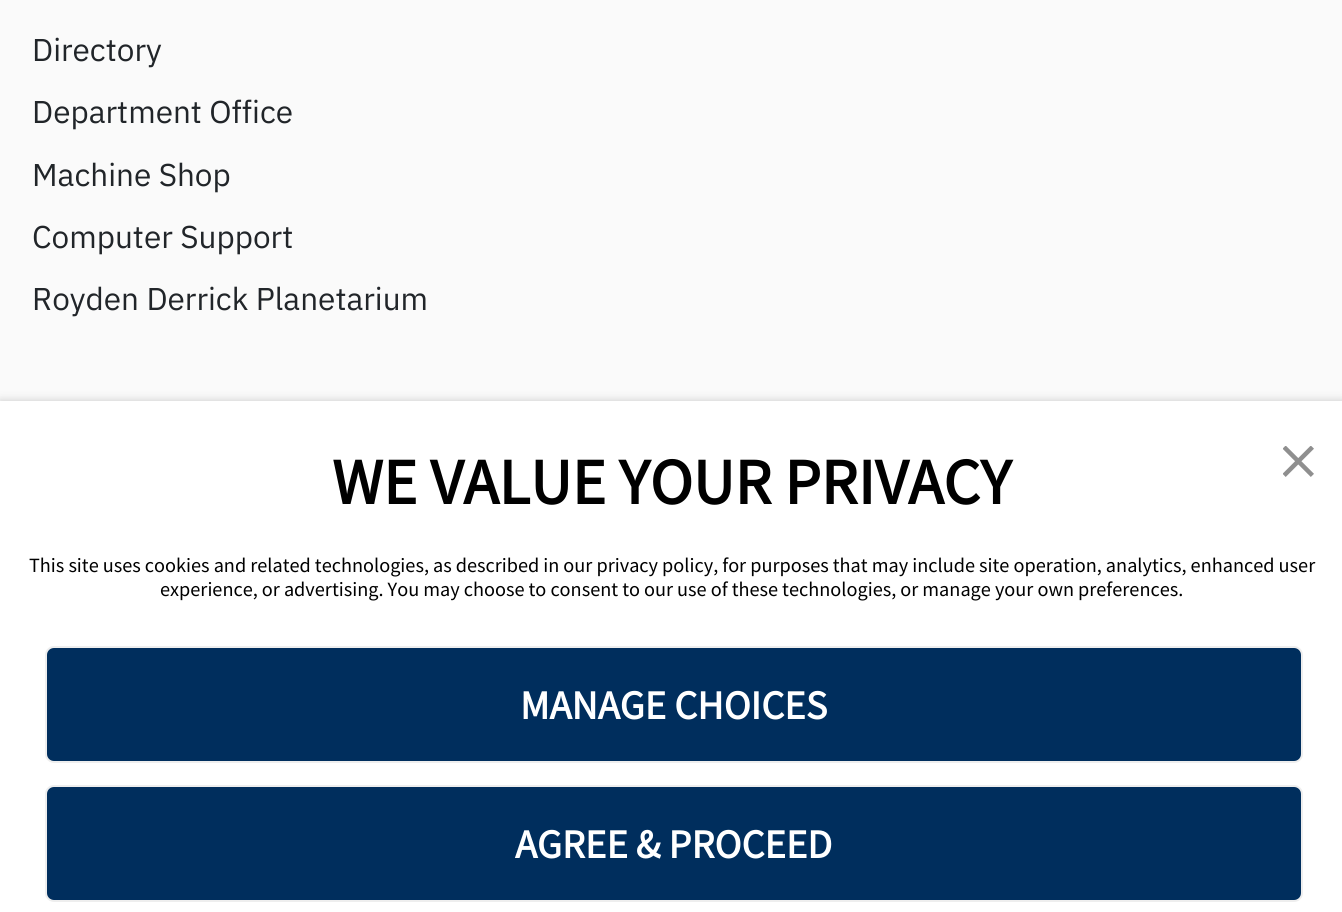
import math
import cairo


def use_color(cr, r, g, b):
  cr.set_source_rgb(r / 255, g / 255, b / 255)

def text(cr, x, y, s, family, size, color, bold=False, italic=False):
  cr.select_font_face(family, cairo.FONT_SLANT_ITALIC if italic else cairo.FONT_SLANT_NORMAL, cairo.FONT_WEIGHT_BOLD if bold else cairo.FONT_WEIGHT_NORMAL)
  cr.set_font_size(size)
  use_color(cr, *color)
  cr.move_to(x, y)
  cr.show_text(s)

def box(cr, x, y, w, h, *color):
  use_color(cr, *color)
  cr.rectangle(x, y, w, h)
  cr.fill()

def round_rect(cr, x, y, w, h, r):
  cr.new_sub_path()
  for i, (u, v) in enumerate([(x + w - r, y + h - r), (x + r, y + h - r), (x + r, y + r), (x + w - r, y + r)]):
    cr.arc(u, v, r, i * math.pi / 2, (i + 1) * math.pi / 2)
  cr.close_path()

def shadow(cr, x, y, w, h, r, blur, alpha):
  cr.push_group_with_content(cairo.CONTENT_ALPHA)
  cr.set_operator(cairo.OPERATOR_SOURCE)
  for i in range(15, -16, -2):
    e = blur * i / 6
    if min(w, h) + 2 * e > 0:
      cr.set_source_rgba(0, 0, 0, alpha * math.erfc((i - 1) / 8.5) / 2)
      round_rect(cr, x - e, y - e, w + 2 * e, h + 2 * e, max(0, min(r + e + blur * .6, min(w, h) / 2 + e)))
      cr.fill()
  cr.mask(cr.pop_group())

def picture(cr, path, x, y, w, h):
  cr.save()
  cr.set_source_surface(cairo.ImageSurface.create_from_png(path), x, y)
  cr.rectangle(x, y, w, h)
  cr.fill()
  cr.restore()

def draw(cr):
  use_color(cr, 250, 250, 250)
  cr.paint()
  use_color(cr, 0, 0, 0)
  shadow(cr, 0, 401, 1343, 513, 0, 4.5, 0.2)
  box(cr, 0, 401, 1342, 511, 255, 255, 255)
  picture(cr, "img_01.png", 1283, 446, 31, 31)
  use_color(cr, 0, 46, 93)
  round_rect(cr, 46, 647, 1256, 115, 8)
  cr.fill_preserve()
  use_color(cr, 238, 238, 238)
  cr.stroke()
  use_color(cr, 0, 46, 93)
  round_rect(cr, 46, 786, 1256, 115, 8)
  cr.fill_preserve()
  use_color(cr, 238, 238, 238)
  cr.stroke()
  text(cr, 32, 61, "Directory", "IBM Plex Sans", 31.5, (33, 37, 41))
  text(cr, 32, 123, "Department Office", "IBM Plex Sans", 31.5, (33, 37, 41))
  text(cr, 32, 186, "Machine Shop", "IBM Plex Sans", 31.5, (33, 37, 41))
  text(cr, 32, 248, "Computer Support", "IBM Plex Sans", 31.5, (33, 37, 41))
  text(cr, 32, 310, "Royden Derrick Planetarium", "IBM Plex Sans", 31.5, (33, 37, 41))
  text(cr, 332, 504, "WE VALUE YOUR PRIVACY", "Source Sans Pro", 64.75, (0, 0, 0), bold=True)
  text(cr, 29, 572, "This site uses cookies and related technologies, as described in our privacy policy, for purposes that may include site operation, analytics, enhanced user", "Source Sans Pro", 20.25, (0, 0, 0))
  text(cr, 160, 596, "experience, or advertising. You may choose to consent to our use of these technologies, or manage your own preferences.", "Source Sans Pro", 20.25, (0, 0, 0))
  text(cr, 520, 719, "MANAGE CHOICES", "Source Sans Pro", 40.5, (255, 255, 255), bold=True)
  text(cr, 515, 858, "AGREE & PROCEED", "Source Sans Pro", 40.5, (255, 255, 255), bold=True)


surface = cairo.ImageSurface(cairo.FORMAT_RGB24, 1342, 912)
cr = cairo.Context(surface)
options = cairo.FontOptions()
options.set_hint_metrics(cairo.HINT_METRICS_OFF)
options.set_hint_style(cairo.HINT_STYLE_NONE)
cr.set_font_options(options)
cr.set_miter_limit(4)
draw(cr)
surface.write_to_png("out.png")
